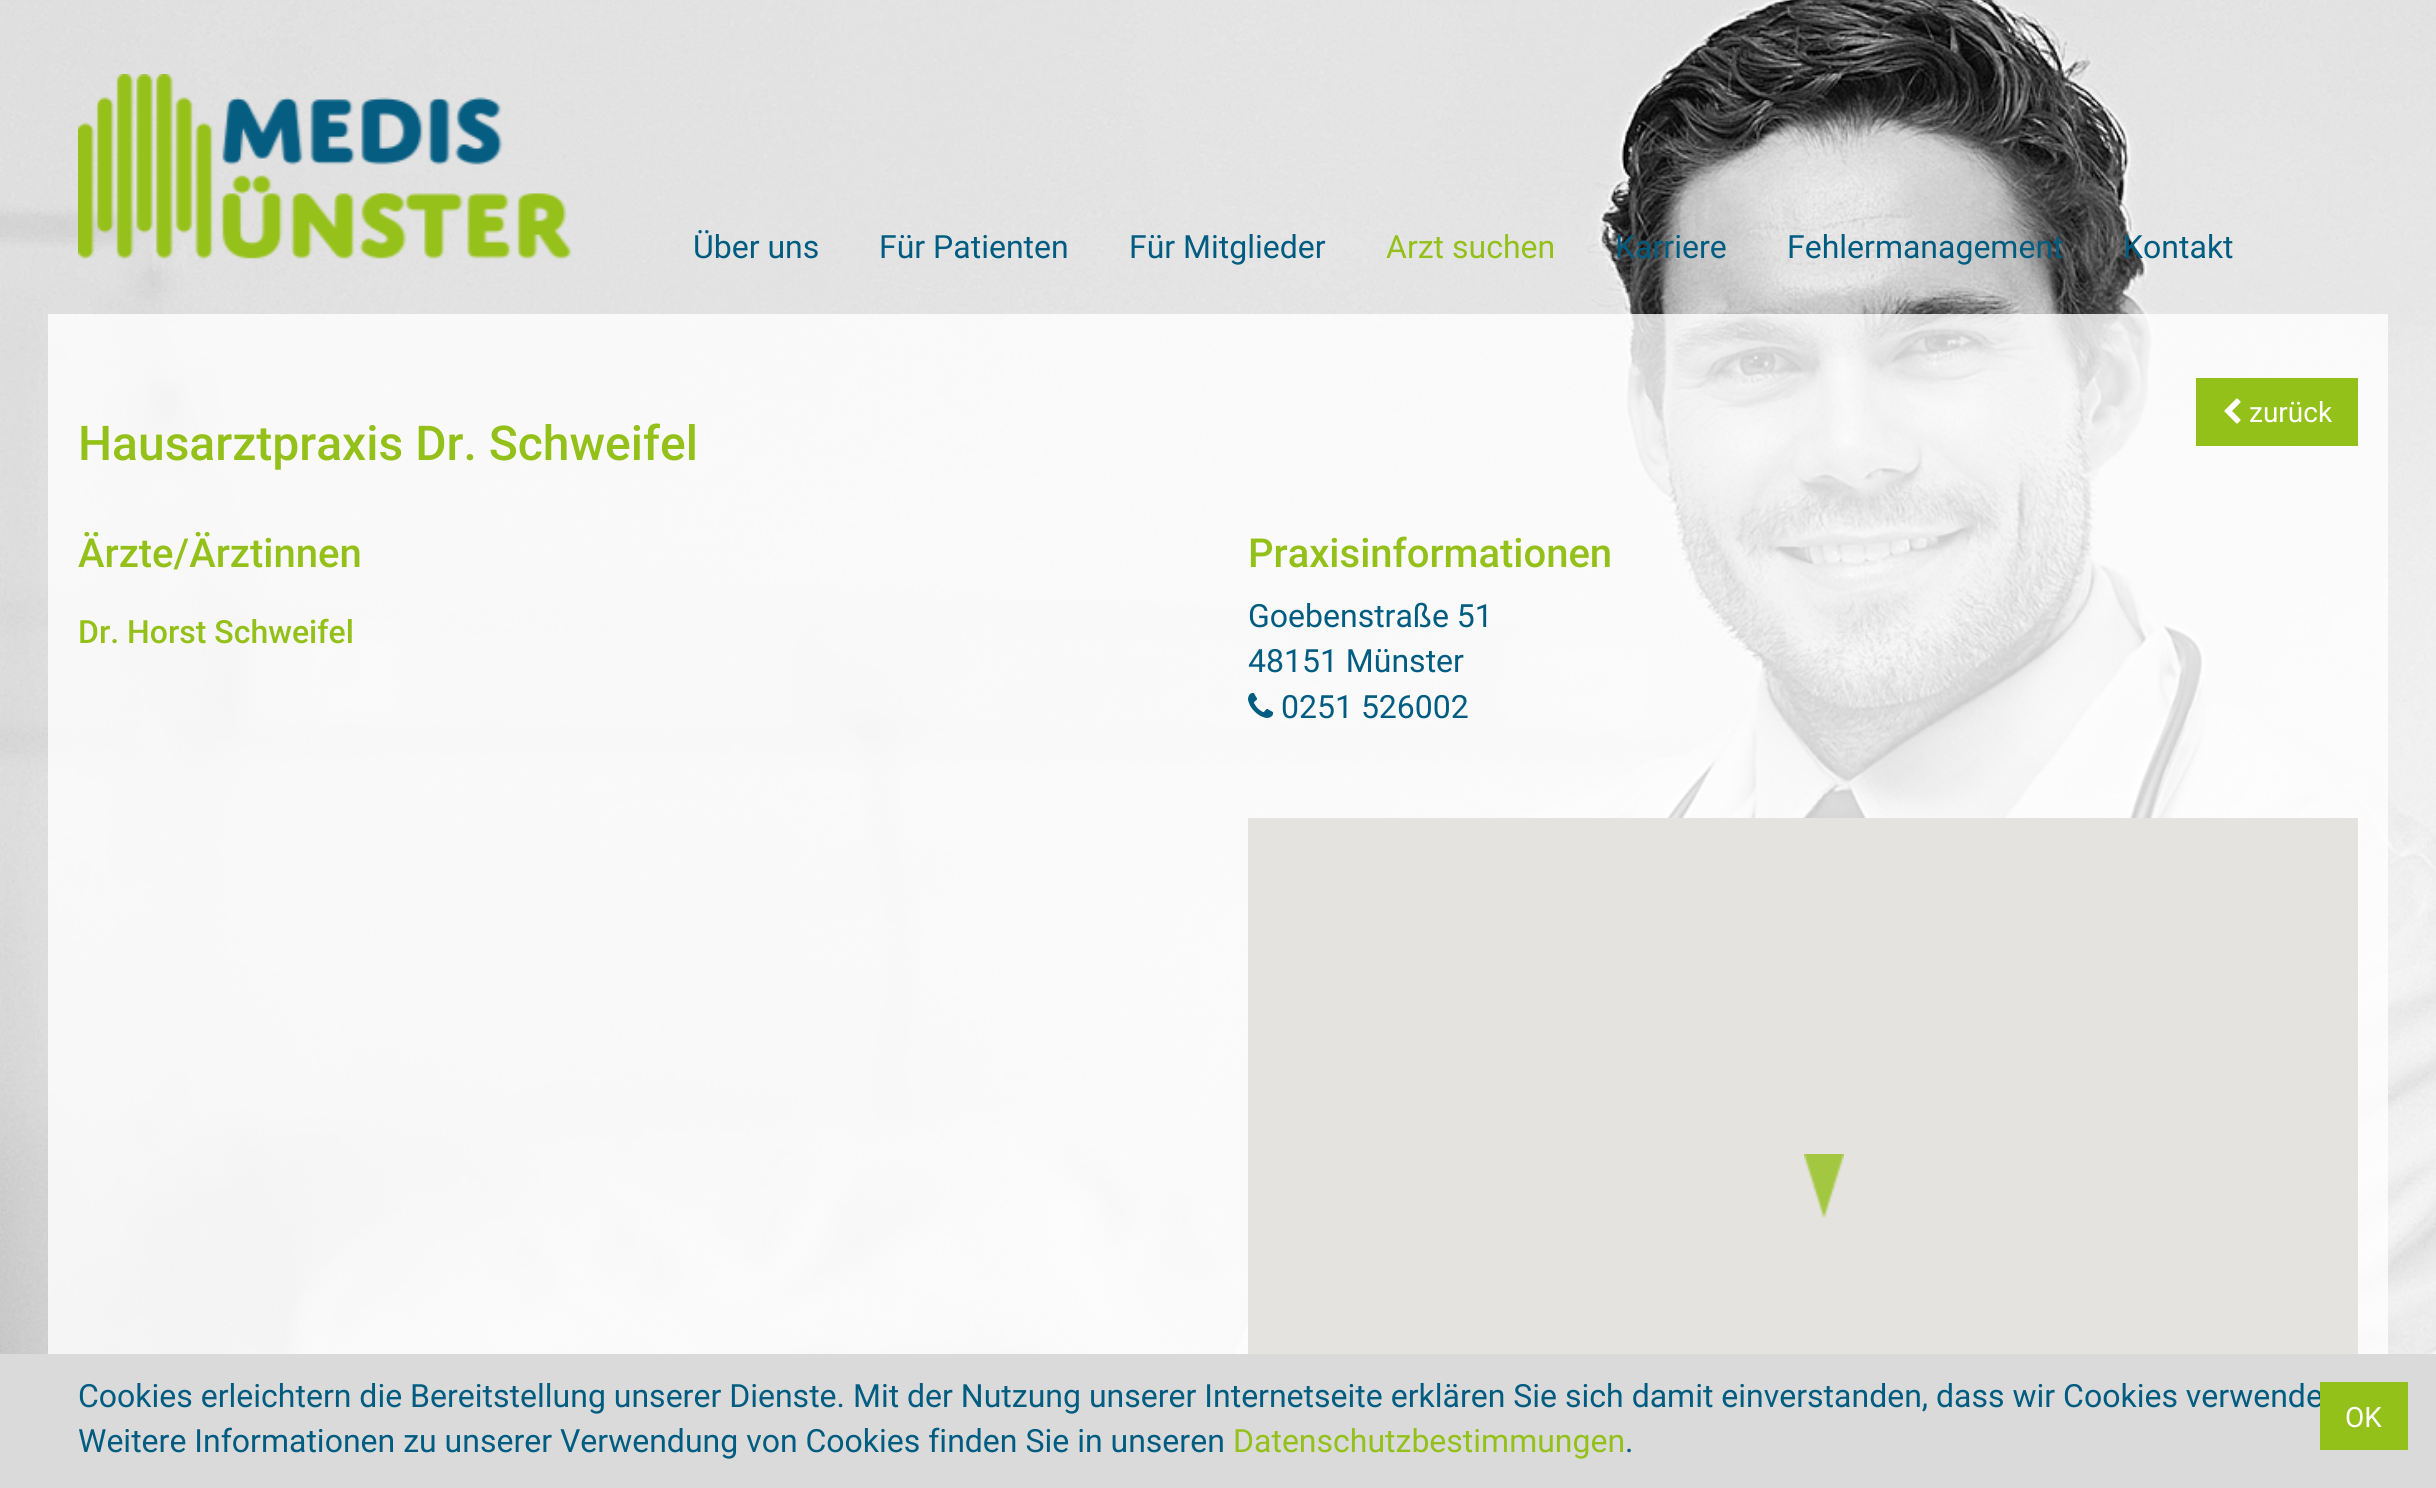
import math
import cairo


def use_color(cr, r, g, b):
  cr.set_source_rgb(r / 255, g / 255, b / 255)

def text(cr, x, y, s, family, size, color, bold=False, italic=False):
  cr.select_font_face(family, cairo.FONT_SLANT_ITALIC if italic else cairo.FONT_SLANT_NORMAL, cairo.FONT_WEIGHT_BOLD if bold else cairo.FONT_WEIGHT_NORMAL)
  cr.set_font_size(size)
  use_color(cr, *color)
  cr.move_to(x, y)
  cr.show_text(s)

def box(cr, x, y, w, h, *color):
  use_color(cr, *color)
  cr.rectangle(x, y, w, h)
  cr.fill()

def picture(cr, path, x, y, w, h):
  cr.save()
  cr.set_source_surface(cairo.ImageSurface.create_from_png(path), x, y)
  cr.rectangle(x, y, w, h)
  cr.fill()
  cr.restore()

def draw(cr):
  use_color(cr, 255, 255, 255)
  cr.paint()
  picture(cr, "img_01.png", 0, 0, 2436, 1354)
  picture(cr, "img_02.png", 78, 74, 494, 185)
  cr.set_source_rgba(1, 1, 1, 0.8)
  cr.rectangle(48, 314, 2340, 1040)
  cr.fill()
  box(cr, 2196, 378, 162, 68, 148, 192, 26)
  picture(cr, "img_03.png", 2224, 398, 17, 26)
  picture(cr, "img_04.png", 1248, 692, 26, 26)
  box(cr, 1248, 818, 1110, 536, 229, 227, 223)
  picture(cr, "img_05.png", 1804, 1154, 40, 64)
  box(cr, 0, 1354, 2436, 134, 218, 218, 218)
  text(cr, 693, 258, "Über uns", "Roboto", 32, (0, 93, 129))
  text(cr, 879, 258, "Für Patienten", "Roboto", 32, (0, 93, 129))
  text(cr, 1129, 258, "Für Mitglieder", "Roboto", 32, (0, 93, 129))
  text(cr, 1386, 258, "Arzt suchen", "Roboto", 32, (148, 192, 26))
  text(cr, 1615, 258, "Karriere", "Roboto", 32, (0, 93, 129))
  text(cr, 1787, 258, "Fehlermanagement", "Roboto", 32, (0, 93, 129))
  text(cr, 2123, 258, "Kontakt", "Roboto", 32, (0, 93, 129))
  text(cr, 2249, 422, "zurück", "Roboto", 28, (255, 255, 255))
  text(cr, 78, 460, "Hausarztpraxis Dr. Schweifel", "Roboto Medium", 48, (148, 192, 26))
  text(cr, 78, 567, "Ärzte/Ärztinnen", "Roboto Medium", 40, (148, 192, 26))
  text(cr, 78, 643, "Dr. Horst Schweifel", "Roboto Medium", 32, (148, 192, 26))
  text(cr, 1248, 567, "Praxisinformationen", "Roboto Medium", 40, (148, 192, 26))
  text(cr, 1248, 627, "Goebenstraße 51", "Roboto", 32, (0, 93, 129))
  text(cr, 1248, 672, "48151 Münster", "Roboto", 32, (0, 93, 129))
  text(cr, 1281, 718, "0251 526002", "Roboto", 32, (0, 93, 129))
  text(cr, 78, 1407, "Cookies erleichtern die Bereitstellung unserer Dienste. Mit der Nutzung unserer Internetseite erklären Sie sich damit einverstanden, dass wir Cookies verwende", "Roboto", 32, (0, 93, 129))
  text(cr, 78, 1452, "Weitere Informationen zu unserer Verwendung von Cookies finden Sie in unseren", "Roboto", 32, (0, 93, 129))
  text(cr, 1233, 1452, "Datenschutzbestimmungen", "Roboto", 32, (148, 192, 26))
  text(cr, 1625, 1452, ".", "Roboto", 32, (0, 93, 129))
  box(cr, 2320, 1382, 88, 68, 148, 192, 26)
  text(cr, 2345, 1427, "OK", "Roboto", 28, (255, 255, 255))


surface = cairo.ImageSurface(cairo.FORMAT_RGB24, 2436, 1488)
cr = cairo.Context(surface)
options = cairo.FontOptions()
options.set_hint_metrics(cairo.HINT_METRICS_OFF)
options.set_hint_style(cairo.HINT_STYLE_NONE)
cr.set_font_options(options)
cr.set_miter_limit(4)
draw(cr)
surface.write_to_png("out.png")
